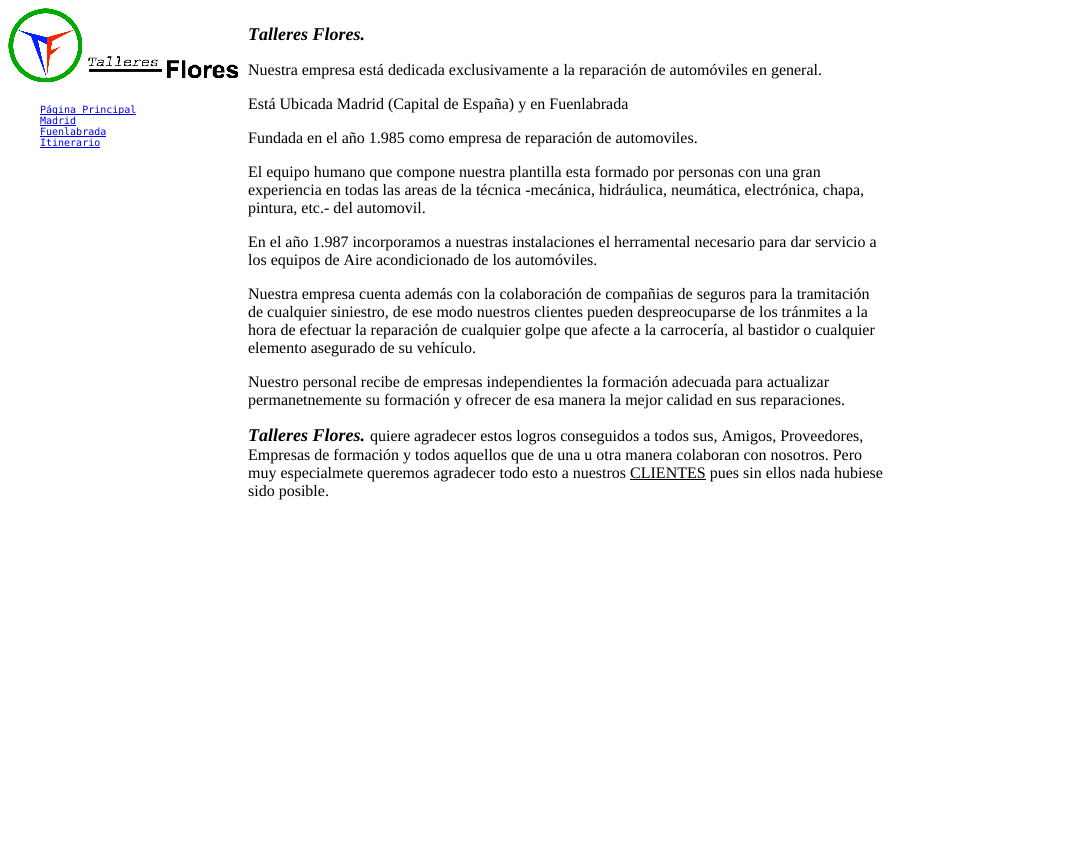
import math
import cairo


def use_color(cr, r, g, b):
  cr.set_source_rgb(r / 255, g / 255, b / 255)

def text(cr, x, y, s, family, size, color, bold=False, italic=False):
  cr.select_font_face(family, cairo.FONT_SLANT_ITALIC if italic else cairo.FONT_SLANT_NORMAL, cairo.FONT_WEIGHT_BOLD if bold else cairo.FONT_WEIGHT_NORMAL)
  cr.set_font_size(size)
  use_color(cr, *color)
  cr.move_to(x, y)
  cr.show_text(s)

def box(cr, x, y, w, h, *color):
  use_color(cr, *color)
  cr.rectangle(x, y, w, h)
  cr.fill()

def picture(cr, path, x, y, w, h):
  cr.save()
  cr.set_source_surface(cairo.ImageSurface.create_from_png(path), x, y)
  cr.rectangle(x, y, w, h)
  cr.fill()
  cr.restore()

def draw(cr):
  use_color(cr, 255, 255, 255)
  cr.paint()
  picture(cr, "img_01.png", 8, 8, 74, 74)
  picture(cr, "img_02.png", 88, 56, 150, 22)
  box(cr, 630, 479, 76, 1, 0, 0, 0)
  box(cr, 40, 114, 96, 1, 0, 0, 238)
  box(cr, 40, 125, 36, 1, 0, 0, 238)
  box(cr, 40, 136, 66, 1, 0, 0, 238)
  box(cr, 40, 147, 60, 1, 0, 0, 238)
  text(cr, 248, 40, "Talleres Flores.", "Liberation Serif", 18, (0, 0, 0), bold=True, italic=True)
  text(cr, 248, 75, "Nuestra empresa está dedicada exclusivamente a la reparación de automóviles en general.", "Liberation Serif", 16, (0, 0, 0))
  text(cr, 248, 109, "Está Ubicada Madrid (Capital de España) y en Fuenlabrada", "Liberation Serif", 16, (0, 0, 0))
  text(cr, 248, 143, "Fundada en el año 1.985 como empresa de reparación de automoviles.", "Liberation Serif", 16, (0, 0, 0))
  text(cr, 248, 177, "El equipo humano que compone nuestra plantilla esta formado por personas con una gran", "Liberation Serif", 16, (0, 0, 0))
  text(cr, 248, 195, "experiencia en todas las areas de la técnica -mecánica, hidráulica, neumática, electrónica, chapa,", "Liberation Serif", 16, (0, 0, 0))
  text(cr, 248, 213, "pintura, etc.- del automovil.", "Liberation Serif", 16, (0, 0, 0))
  text(cr, 248, 247, "En el año 1.987 incorporamos a nuestras instalaciones el herramental necesario para dar servicio a", "Liberation Serif", 16, (0, 0, 0))
  text(cr, 248, 265, "los equipos de Aire acondicionado de los automóviles.", "Liberation Serif", 16, (0, 0, 0))
  text(cr, 248, 299, "Nuestra empresa cuenta además con la colaboración de compañias de seguros para la tramitación", "Liberation Serif", 16, (0, 0, 0))
  text(cr, 248, 317, "de cualquier siniestro, de ese modo nuestros clientes pueden despreocuparse de los tránmites a la", "Liberation Serif", 16, (0, 0, 0))
  text(cr, 248, 335, "hora de efectuar la reparación de cualquier golpe que afecte a la carrocería, al bastidor o cualquier", "Liberation Serif", 16, (0, 0, 0))
  text(cr, 248, 353, "elemento asegurado de su vehículo.", "Liberation Serif", 16, (0, 0, 0))
  text(cr, 248, 387, "Nuestro personal recibe de empresas independientes la formación adecuada para actualizar", "Liberation Serif", 16, (0, 0, 0))
  text(cr, 248, 405, "permanetnemente su formación y ofrecer de esa manera la mejor calidad en sus reparaciones.", "Liberation Serif", 16, (0, 0, 0))
  text(cr, 248, 441, "Talleres Flores.", "Liberation Serif", 18, (0, 0, 0), bold=True, italic=True)
  text(cr, 370, 441, "quiere agradecer estos logros conseguidos a todos sus, Amigos, Proveedores,", "Liberation Serif", 16, (0, 0, 0))
  text(cr, 248, 460, "Empresas de formación y todos aquellos que de una u otra manera colaboran con nosotros. Pero", "Liberation Serif", 16, (0, 0, 0))
  text(cr, 248, 478, "muy especialmete queremos agradecer todo esto a nuestros CLIENTES pues sin ellos nada hubiese", "Liberation Serif", 16, (0, 0, 0))
  text(cr, 248, 496, "sido posible.", "Liberation Serif", 16, (0, 0, 0))
  text(cr, 40, 113, "Página Principal", "DejaVu Sans Mono", 10, (0, 0, 238))
  text(cr, 40, 124, "Madrid", "DejaVu Sans Mono", 10, (0, 0, 238))
  text(cr, 40, 135, "Fuenlabrada", "DejaVu Sans Mono", 10, (0, 0, 238))
  text(cr, 40, 146, "Itinerario", "DejaVu Sans Mono", 10, (0, 0, 238))


surface = cairo.ImageSurface(cairo.FORMAT_RGB24, 1069, 860)
cr = cairo.Context(surface)
options = cairo.FontOptions()
options.set_hint_metrics(cairo.HINT_METRICS_OFF)
options.set_hint_style(cairo.HINT_STYLE_NONE)
cr.set_font_options(options)
cr.set_miter_limit(4)
draw(cr)
surface.write_to_png("out.png")
